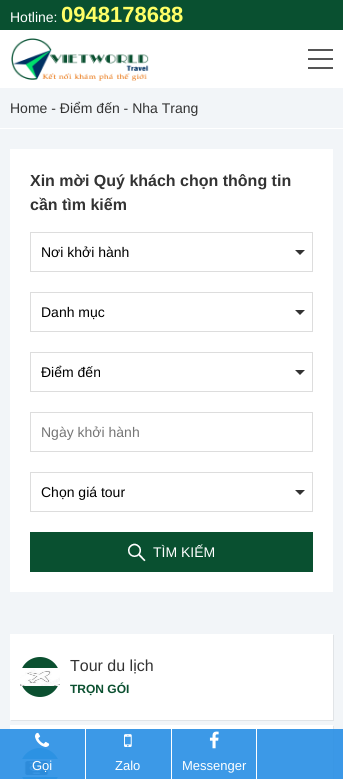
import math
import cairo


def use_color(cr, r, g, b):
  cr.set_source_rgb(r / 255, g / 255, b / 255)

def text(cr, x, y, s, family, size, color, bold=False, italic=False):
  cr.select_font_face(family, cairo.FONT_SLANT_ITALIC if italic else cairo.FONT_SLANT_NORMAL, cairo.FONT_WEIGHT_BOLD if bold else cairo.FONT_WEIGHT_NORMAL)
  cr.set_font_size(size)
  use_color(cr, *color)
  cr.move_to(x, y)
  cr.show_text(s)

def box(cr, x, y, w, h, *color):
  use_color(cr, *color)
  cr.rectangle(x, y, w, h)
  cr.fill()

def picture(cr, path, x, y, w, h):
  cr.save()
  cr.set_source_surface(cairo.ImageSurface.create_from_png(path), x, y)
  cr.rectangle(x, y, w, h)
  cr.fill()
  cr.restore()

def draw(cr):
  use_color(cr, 255, 255, 255)
  cr.paint()
  box(cr, 0, 0, 343, 30, 9, 80, 48)
  picture(cr, "img_01.png", 11, 38, 138, 43)
  box(cr, 308, 49, 25, 2, 85, 85, 85)
  box(cr, 308, 58, 25, 2, 85, 85, 85)
  box(cr, 308, 67, 25, 2, 85, 85, 85)
  box(cr, 0, 88, 343, 40, 242, 245, 248)
  box(cr, 0, 129, 343, 650, 242, 245, 248)
  box(cr, 10, 149, 323, 443, 255, 255, 255)
  use_color(cr, 51, 51, 51)
  cr.new_path()
  cr.move_to(295, 250)
  cr.line_to(305, 250)
  cr.line_to(300, 255)
  cr.close_path()
  cr.fill()
  cr.rectangle(30.5, 232.5, 282, 39)
  use_color(cr, 221, 221, 221)
  cr.set_line_width(1)
  cr.stroke()
  use_color(cr, 51, 51, 51)
  cr.new_path()
  cr.move_to(295, 310)
  cr.line_to(305, 310)
  cr.line_to(300, 315)
  cr.close_path()
  cr.fill()
  cr.rectangle(30.5, 292.5, 282, 39)
  use_color(cr, 221, 221, 221)
  cr.stroke()
  use_color(cr, 51, 51, 51)
  cr.new_path()
  cr.move_to(295, 370)
  cr.line_to(305, 370)
  cr.line_to(300, 375)
  cr.close_path()
  cr.fill()
  cr.rectangle(30.5, 352.5, 282, 39)
  use_color(cr, 221, 221, 221)
  cr.stroke()
  cr.rectangle(30.5, 412.5, 282, 39)
  cr.stroke()
  use_color(cr, 51, 51, 51)
  cr.new_path()
  cr.move_to(295, 490)
  cr.line_to(305, 490)
  cr.line_to(300, 495)
  cr.close_path()
  cr.fill()
  cr.rectangle(30.5, 472.5, 282, 39)
  use_color(cr, 221, 221, 221)
  cr.stroke()
  box(cr, 30, 532, 283, 40, 9, 80, 48)
  picture(cr, "img_02.png", 128, 543, 18, 19)
  use_color(cr, 225, 228, 231)
  cr.new_path()
  cr.move_to(11, 720)
  cr.line_to(11, 721)
  cr.line_to(334, 721)
  cr.line_to(334, 635)
  cr.line_to(333, 635)
  cr.line_to(333, 720)
  cr.close_path()
  cr.fill()
  box(cr, 10, 634, 323, 86, 255, 255, 255)
  use_color(cr, 11, 80, 48)
  cr.arc(40, 677, 20, 0, 2 * math.pi)
  cr.fill()
  picture(cr, "img_03.png", 20, 668, 40, 18)
  use_color(cr, 225, 228, 231)
  cr.new_path()
  cr.move_to(11, 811)
  cr.line_to(11, 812)
  cr.line_to(334, 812)
  cr.line_to(334, 726)
  cr.line_to(333, 726)
  cr.line_to(333, 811)
  cr.close_path()
  cr.fill()
  box(cr, 10, 725, 323, 54, 255, 255, 255)
  use_color(cr, 20, 154, 188)
  cr.arc(40, 768, 20, 0, 2 * math.pi)
  cr.fill()
  picture(cr, "img_04.png", 20, 759, 40, 18)
  cr.set_source_rgba(0.184, 0.573, 0.902, 0.93)
  cr.rectangle(0, 729, 343, 50)
  cr.fill()
  box(cr, 85, 729, 1, 50, 255, 255, 255)
  picture(cr, "img_05.png", 35, 732, 15, 15)
  box(cr, 171, 729, 1, 50, 255, 255, 255)
  picture(cr, "img_06.png", 124, 734, 8, 13)
  box(cr, 256, 729, 1, 50, 255, 255, 255)
  picture(cr, "img_07.png", 209, 731, 10, 18)
  text(cr, 10, 22, "Hotline:", "Liberation Sans", 14, (255, 255, 255))
  text(cr, 61, 22, "0948178688", "Liberation Sans", 22, (255, 255, 102), bold=True)
  text(cr, 10, 113, "Home - Điểm đến - Nha Trang", "Liberation Sans", 14, (51, 51, 51))
  text(cr, 30, 186, "Xin mời Quý khách chọn thông tin", "Liberation Sans", 16, (51, 51, 51), bold=True)
  text(cr, 30, 210, "cần tìm kiếm", "Liberation Sans", 16, (51, 51, 51), bold=True)
  text(cr, 41, 257, "Nơi khởi hành", "Liberation Sans", 14, (0, 0, 0))
  text(cr, 41, 317, "Danh mục", "Liberation Sans", 14, (0, 0, 0))
  text(cr, 41, 377, "Điểm đến", "Liberation Sans", 14, (0, 0, 0))
  text(cr, 41, 437, "Ngày khởi hành", "Liberation Sans", 14, (117, 117, 117))
  text(cr, 41, 497, "Chọn giá tour", "Liberation Sans", 14, (0, 0, 0))
  text(cr, 153, 557, "TÌM KIẾM", "Liberation Sans", 14, (255, 255, 255))
  text(cr, 70, 671, "Tour du lịch", "Liberation Sans", 16, (51, 51, 51))
  text(cr, 70, 693, "TRỌN GÓI", "Liberation Sans", 12, (11, 80, 48), bold=True)
  text(cr, 32, 770, "Gọi", "Liberation Sans", 13, (255, 255, 255))
  text(cr, 115, 770, "Zalo", "Liberation Sans", 13, (255, 255, 255))
  text(cr, 182, 770, "Messenger", "Liberation Sans", 13, (255, 255, 255))


surface = cairo.ImageSurface(cairo.FORMAT_RGB24, 343, 779)
cr = cairo.Context(surface)
options = cairo.FontOptions()
options.set_hint_metrics(cairo.HINT_METRICS_OFF)
options.set_hint_style(cairo.HINT_STYLE_NONE)
cr.set_font_options(options)
cr.set_miter_limit(4)
draw(cr)
surface.write_to_png("out.png")
